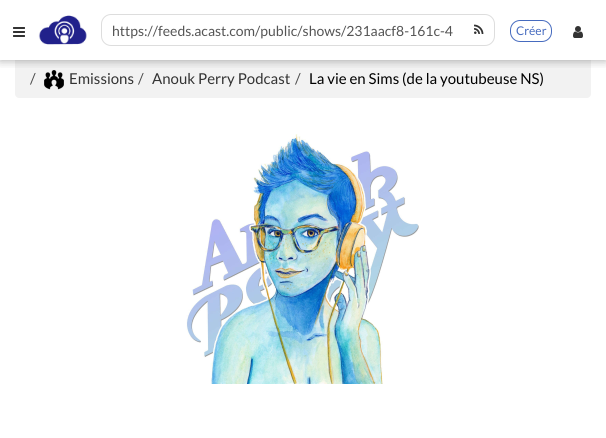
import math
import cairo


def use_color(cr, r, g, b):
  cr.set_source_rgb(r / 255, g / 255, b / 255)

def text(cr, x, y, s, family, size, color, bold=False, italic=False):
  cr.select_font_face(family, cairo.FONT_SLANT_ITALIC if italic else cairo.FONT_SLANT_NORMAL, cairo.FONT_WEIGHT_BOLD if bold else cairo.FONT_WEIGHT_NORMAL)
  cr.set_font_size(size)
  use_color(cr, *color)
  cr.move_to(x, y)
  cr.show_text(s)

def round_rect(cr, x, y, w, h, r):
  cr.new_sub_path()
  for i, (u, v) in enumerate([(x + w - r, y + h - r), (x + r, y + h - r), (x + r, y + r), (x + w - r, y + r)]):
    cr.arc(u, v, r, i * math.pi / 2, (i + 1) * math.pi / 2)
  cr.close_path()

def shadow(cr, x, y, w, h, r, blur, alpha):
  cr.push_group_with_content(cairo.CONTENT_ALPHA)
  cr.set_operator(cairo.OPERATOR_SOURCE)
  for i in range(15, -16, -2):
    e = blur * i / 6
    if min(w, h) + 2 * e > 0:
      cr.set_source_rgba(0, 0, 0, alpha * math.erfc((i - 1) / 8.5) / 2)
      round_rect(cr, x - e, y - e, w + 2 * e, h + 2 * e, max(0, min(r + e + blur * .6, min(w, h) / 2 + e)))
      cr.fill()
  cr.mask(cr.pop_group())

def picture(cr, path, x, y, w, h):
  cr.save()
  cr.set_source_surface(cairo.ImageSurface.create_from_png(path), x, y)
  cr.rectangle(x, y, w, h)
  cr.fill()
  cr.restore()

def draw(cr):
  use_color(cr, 255, 255, 255)
  cr.paint()
  use_color(cr, 242, 242, 242)
  cr.new_path()
  cr.move_to(15, 60)
  cr.line_to(591, 60)
  cr.line_to(591, 94)
  cr.curve_to(591, 96, 589, 98, 587, 98)
  cr.line_to(19, 98)
  cr.curve_to(17, 98, 15, 96, 15, 94)
  cr.close_path()
  cr.fill()
  picture(cr, "img_05.png", 44, 70, 20, 20)
  cr.save()
  cr.rectangle(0, 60, 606, 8)
  cr.clip()
  use_color(cr, 0, 0, 0)
  shadow(cr, 0, 0, 606, 60, 0, 5, 0.35)
  cr.restore()
  picture(cr, "img_01.png", 13, 27, 12, 10)
  picture(cr, "img_02.png", 38, 15, 49, 30)
  round_rect(cr, 101.5, 14.5, 393, 31, 9.5)
  use_color(cr, 221, 221, 221)
  cr.set_line_width(1)
  cr.stroke()
  picture(cr, "img_03.png", 474, 24, 10, 10)
  round_rect(cr, 510.5, 20.5, 41, 21, 9.5)
  use_color(cr, 70, 107, 191)
  cr.stroke()
  picture(cr, "img_04.png", 573, 26, 10, 12)
  picture(cr, "img_06.png", 186, 134, 233, 250)
  text(cr, 112, 36, "https://feeds.acast.com/public/shows/231aacf8-161c-4", "Lato", 14, (85, 85, 85))
  text(cr, 516, 35, "Créer", "Lato", 12, (70, 107, 191))
  text(cr, 30, 84, "/", "Lato", 15, (77, 77, 77))
  text(cr, 69, 84, "Emissions", "Lato", 15, (51, 51, 51))
  text(cr, 138, 84, "/", "Lato", 15, (77, 77, 77))
  text(cr, 152, 84, "Anouk Perry Podcast", "Lato", 15, (51, 51, 51))
  text(cr, 295, 84, "/", "Lato", 15, (77, 77, 77))
  text(cr, 309, 84, "La vie en Sims (de la youtubeuse NS)", "Lato", 15, (0, 0, 0))


surface = cairo.ImageSurface(cairo.FORMAT_RGB24, 606, 438)
cr = cairo.Context(surface)
options = cairo.FontOptions()
options.set_hint_metrics(cairo.HINT_METRICS_OFF)
options.set_hint_style(cairo.HINT_STYLE_NONE)
cr.set_font_options(options)
cr.set_miter_limit(4)
draw(cr)
surface.write_to_png("out.png")
